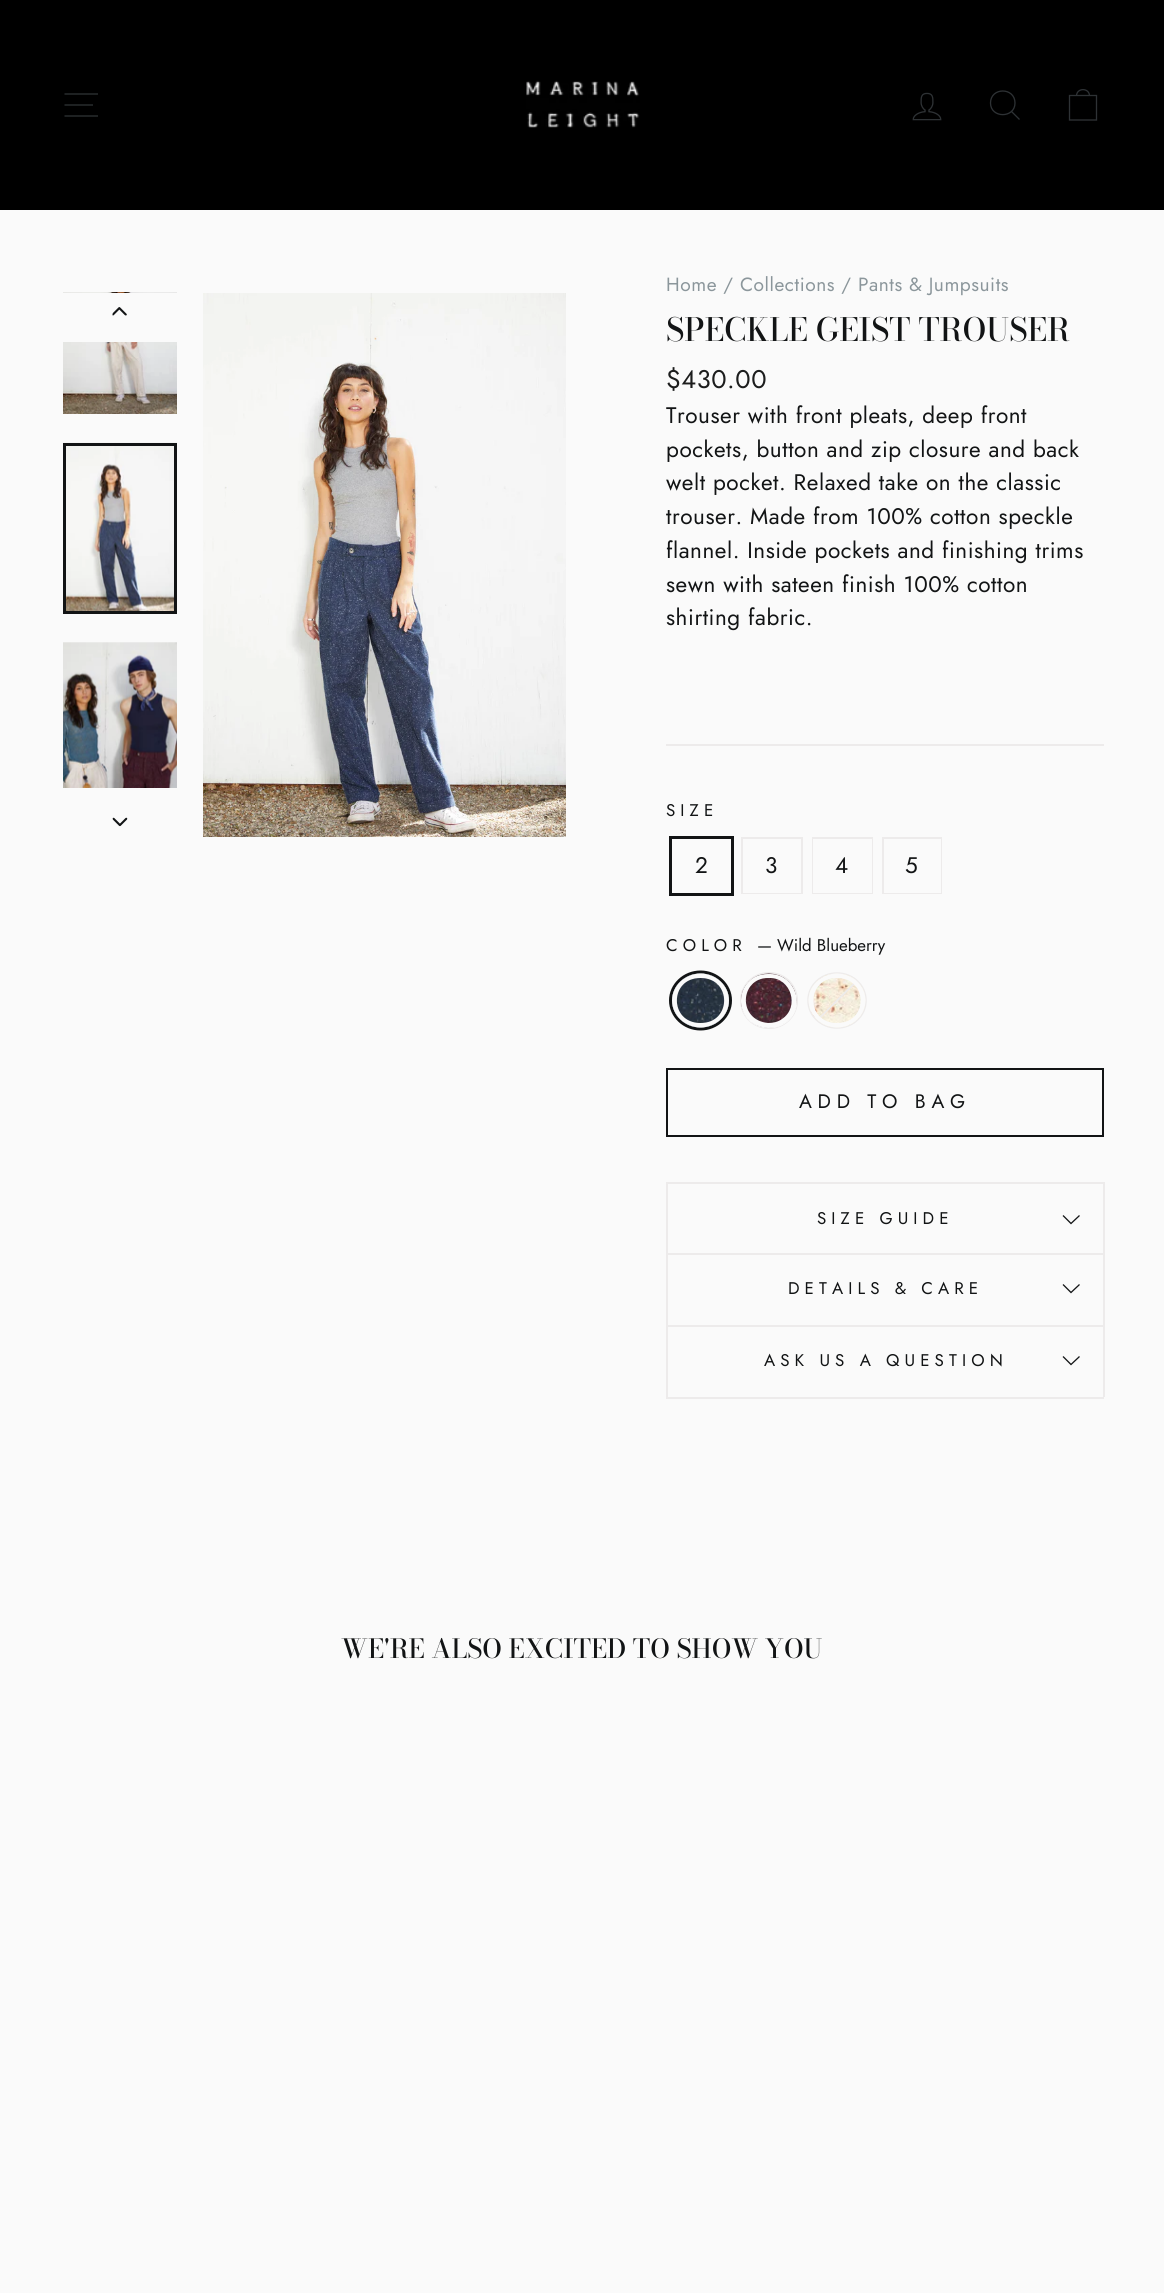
import math
import cairo


def use_color(cr, r, g, b):
  cr.set_source_rgb(r / 255, g / 255, b / 255)

def text(cr, x, y, s, family, size, color, bold=False, italic=False):
  cr.select_font_face(family, cairo.FONT_SLANT_ITALIC if italic else cairo.FONT_SLANT_NORMAL, cairo.FONT_WEIGHT_BOLD if bold else cairo.FONT_WEIGHT_NORMAL)
  cr.set_font_size(size)
  use_color(cr, *color)
  cr.move_to(x, y)
  cr.show_text(s)

def spaced_text(cr, x, y, s, letter, word):
  cr.move_to(x, y)
  for ch in s:
    cr.show_text(ch)
    cr.rel_move_to(letter + word * (ch == ' '), 0)

def box(cr, x, y, w, h, *color):
  use_color(cr, *color)
  cr.rectangle(x, y, w, h)
  cr.fill()

def round_rect(cr, x, y, w, h, r):
  cr.new_sub_path()
  for i, (u, v) in enumerate([(x + w - r, y + h - r), (x + r, y + h - r), (x + r, y + r), (x + w - r, y + r)]):
    cr.arc(u, v, r, i * math.pi / 2, (i + 1) * math.pi / 2)
  cr.close_path()

def picture(cr, path, x, y, w, h):
  cr.save()
  cr.set_source_surface(cairo.ImageSurface.create_from_png(path), x, y)
  cr.rectangle(x, y, w, h)
  cr.fill()
  cr.restore()

def draw(cr):
  use_color(cr, 250, 250, 250)
  cr.paint()
  box(cr, 0, 0, 1164, 210, 0, 0, 0)
  cr.new_path()
  cr.move_to(64.5, 94)
  cr.line_to(98, 94)
  cr.move_to(64.5, 105)
  cr.line_to(93, 105)
  cr.move_to(64.5, 116)
  cr.line_to(98, 116)
  use_color(cr, 46, 50, 53)
  cr.set_line_width(1.3)
  cr.stroke()
  picture(cr, "img_01.png", 526, 80, 114, 48)
  picture(cr, "img_02.png", 912, 92, 30, 29)
  cr.new_path()
  cr.move_to(1015, 103)
  cr.curve_to(1015, 118.5, 990.5, 118.5, 990.5, 103)
  cr.curve_to(990.5, 87, 1015, 87, 1015, 103)
  cr.close_path()
  cr.move_to(1019.5, 119.5)
  cr.line_to(1011.5, 111.5)
  cr.stroke()
  cr.new_path()
  cr.move_to(1069.5, 95.5)
  cr.line_to(1096.5, 95.5)
  cr.line_to(1096.5, 120)
  cr.line_to(1069.5, 120)
  cr.close_path()
  cr.move_to(1076.5, 96)
  cr.curve_to(1076.5, 87.5, 1089.5, 87.5, 1089.5, 96)
  cr.stroke()
  picture(cr, "img_03.png", 63, 292, 114, 122)
  picture(cr, "img_04.png", 63, 442, 114, 169)
  cr.rectangle(64.5, 444.5, 111, 168)
  use_color(cr, 18, 20, 21)
  cr.set_line_width(3)
  cr.stroke()
  picture(cr, "img_05.png", 63, 642, 114, 146)
  box(cr, 63, 293, 114, 49, 250, 250, 250)
  picture(cr, "img_06.png", 112, 307, 15, 9)
  picture(cr, "img_07.png", 112, 817, 16, 10)
  picture(cr, "img_08.png", 203, 293, 363, 544)
  box(cr, 666, 744, 438, 2, 237, 235, 235)
  cr.rectangle(670.5, 837.5, 62, 57)
  use_color(cr, 18, 20, 21)
  cr.stroke()
  cr.rectangle(742, 838, 60, 55)
  use_color(cr, 237, 235, 235)
  cr.set_line_width(2)
  cr.stroke()
  box(cr, 743, 892, 58, 1, 250, 250, 250)
  cr.rectangle(813, 838, 59, 55)
  use_color(cr, 237, 235, 235)
  cr.stroke()
  box(cr, 813, 839, 59, 54, 250, 250, 250)
  cr.rectangle(883, 838, 58, 55)
  use_color(cr, 237, 235, 235)
  cr.stroke()
  box(cr, 884, 839, 57, 54, 250, 250, 250)
  cr.new_path()
  cr.move_to(700.5, 972)
  cr.curve_to(717, 972, 730.5, 985, 730.5, 1000.5)
  cr.curve_to(730.5, 1016, 717, 1029, 700.5, 1029)
  cr.curve_to(684, 1029, 670.5, 1016, 670.5, 1000.5)
  cr.curve_to(670.5, 985, 684, 972, 700.5, 972)
  cr.close_path()
  use_color(cr, 18, 20, 21)
  cr.set_line_width(3)
  cr.stroke()
  picture(cr, "img_09.png", 672, 973, 57, 55)
  cr.save()
  cr.new_path()
  cr.move_to(700.5, 973.5)
  cr.curve_to(716, 973.5, 729, 985.5, 729, 1000.5)
  cr.curve_to(729, 1015.5, 716, 1027.5, 700.5, 1027.5)
  cr.curve_to(685, 1027.5, 672, 1015.5, 672, 1000.5)
  cr.curve_to(672, 985.5, 685, 973.5, 700.5, 973.5)
  cr.close_path()
  cr.clip()
  cr.new_path()
  cr.move_to(700.5, 975)
  cr.curve_to(736, 975, 736, 1026, 700.5, 1026)
  cr.curve_to(665, 1026, 665, 975, 700.5, 975)
  cr.close_path()
  use_color(cr, 250, 250, 250)
  cr.set_line_width(6)
  cr.stroke()
  cr.restore()
  round_rect(cr, 741, 973, 56, 55, 27.5)
  use_color(cr, 237, 235, 235)
  cr.set_line_width(2)
  cr.stroke()
  use_color(cr, 250, 250, 250)
  round_rect(cr, 741, 974, 56, 54, 27)
  cr.fill()
  picture(cr, "img_10.png", 741, 973, 56, 55)
  cr.set_fill_rule(cairo.FILL_RULE_EVEN_ODD)
  cr.new_path()
  cr.move_to(768, 974)
  cr.curve_to(734, 974, 730, 1025, 768, 1028)
  cr.curve_to(774, 1028, 780, 1027, 785, 1023)
  cr.curve_to(807, 1009, 796, 974, 770, 974)
  cr.close_path()
  cr.move_to(768, 978)
  cr.curve_to(740, 978, 737, 1020, 768, 1023)
  cr.curve_to(773, 1023, 778, 1022, 782, 1019)
  cr.curve_to(800, 1007, 791, 978, 770, 978)
  cr.close_path()
  cr.fill()
  cr.new_path()
  cr.move_to(837, 973)
  cr.curve_to(853, 973, 866, 985, 866, 1000.5)
  cr.curve_to(866, 1016, 853, 1028, 837, 1028)
  cr.curve_to(821, 1028, 808, 1016, 808, 1000.5)
  cr.curve_to(808, 985, 821, 973, 837, 973)
  cr.close_path()
  use_color(cr, 237, 235, 235)
  cr.set_line_width(1.5)
  cr.stroke()
  picture(cr, "img_11.png", 808, 973, 58, 55)
  cr.set_fill_rule(cairo.FILL_RULE_WINDING)
  cr.new_path()
  cr.move_to(856, 980.5)
  cr.line_to(857.5, 981.5)
  cr.line_to(818.5, 1020)
  cr.line_to(817.5, 1019)
  cr.close_path()
  cr.fill()
  cr.save()
  cr.new_path()
  cr.move_to(837, 973.5)
  cr.curve_to(852.5, 973.5, 865.5, 985.5, 865.5, 1000.5)
  cr.curve_to(865.5, 1015.5, 852.5, 1027.5, 837, 1027.5)
  cr.curve_to(821.5, 1027.5, 808.5, 1015.5, 808.5, 1000.5)
  cr.curve_to(808.5, 985.5, 821.5, 973.5, 837, 973.5)
  cr.close_path()
  cr.clip()
  cr.new_path()
  cr.move_to(837, 975)
  cr.curve_to(872.5, 975, 872.5, 1026, 837, 1026)
  cr.curve_to(801.5, 1026, 801.5, 975, 837, 975)
  cr.close_path()
  use_color(cr, 250, 250, 250)
  cr.set_line_width(6)
  cr.stroke()
  cr.restore()
  cr.rectangle(667, 1069, 436, 67)
  use_color(cr, 18, 20, 21)
  cr.set_line_width(2)
  cr.stroke()
  box(cr, 666, 1397, 438, 2, 237, 235, 235)
  box(cr, 666, 1182, 438, 2, 237, 235, 235)
  box(cr, 1103, 1182, 2, 72, 237, 235, 235)
  box(cr, 666, 1182, 2, 72, 237, 235, 235)
  cr.new_path()
  cr.move_to(1063, 1215.5)
  cr.line_to(1071, 1223.5)
  cr.line_to(1079.5, 1215.5)
  use_color(cr, 18, 20, 21)
  cr.set_line_width(1.3)
  cr.stroke()
  box(cr, 666, 1253, 438, 2, 237, 235, 235)
  box(cr, 1103, 1253, 2, 72, 237, 235, 235)
  box(cr, 666, 1253, 2, 72, 237, 235, 235)
  cr.new_path()
  cr.move_to(1063, 1284.5)
  cr.line_to(1071, 1292.5)
  cr.line_to(1079.5, 1284.5)
  use_color(cr, 18, 20, 21)
  cr.stroke()
  box(cr, 666, 1325, 438, 2, 237, 235, 235)
  box(cr, 1103, 1325, 2, 72, 237, 235, 235)
  box(cr, 666, 1325, 2, 72, 237, 235, 235)
  cr.new_path()
  cr.move_to(1063, 1356.5)
  cr.line_to(1071, 1364.5)
  cr.line_to(1079.5, 1356.5)
  use_color(cr, 18, 20, 21)
  cr.stroke()
  cr.select_font_face("Jost")
  cr.set_font_size(19.1)
  use_color(cr, 139, 150, 155)
  spaced_text(cr, 666, 291, "Home / Collections / Pants & Jumpsuits", 0.55, 0)
  text(cr, 666, 341, "SPECKLE GEIST TROUSER", "Bodoni Moda Medium", 31.9, (18, 20, 21))
  cr.select_font_face("Jost")
  cr.set_font_size(25.5)
  use_color(cr, 28, 29, 29)
  spaced_text(cr, 666, 388, "$430.00", 0.55, 0)
  cr.set_font_size(22.5)
  use_color(cr, 18, 20, 21)
  spaced_text(cr, 666, 423, "Trouser with front pleats, deep front", 0.55, 0)
  spaced_text(cr, 666, 457, "pockets, button and zip closure and back", 0.55, 0)
  spaced_text(cr, 666, 490, "welt pocket. Relaxed take on the classic", 0.55, 0)
  spaced_text(cr, 666, 524, "trouser. Made from 100% cotton speckle", 0.55, 0)
  spaced_text(cr, 666, 558, "flannel. Inside pockets and finishing trims", 0.55, 0)
  spaced_text(cr, 666, 592, "sewn with sateen finish 100% cotton", 0.55, 0)
  spaced_text(cr, 666, 625, "shirting fabric.", 0.55, 0)
  cr.set_font_size(16.9)
  spaced_text(cr, 666, 816, "SIZE", 5.1, 0)
  cr.set_font_size(22.5)
  spaced_text(cr, 695, 873, "2", 0.55, 0)
  spaced_text(cr, 765, 873, "3", 0.55, 0)
  spaced_text(cr, 835, 873, "4", 0.55, 0)
  spaced_text(cr, 905, 873, "5", 0.55, 0)
  cr.set_font_size(16.9)
  spaced_text(cr, 666, 951, "COLOR", 5.1, 0)
  text(cr, 757, 951, "— Wild Blueberry", "Jost", 16.9, (18, 20, 21))
  cr.set_font_size(19.5)
  spaced_text(cr, 799, 1108, "ADD TO BAG", 5.75, 0)
  cr.set_font_size(16.9)
  spaced_text(cr, 817, 1224, "SIZE GUIDE", 5.1, 0)
  spaced_text(cr, 788, 1294, "DETAILS & CARE", 5.1, 0)
  spaced_text(cr, 764, 1366, "ASK US A QUESTION", 5.1, 0)
  text(cr, 341, 1658, "WE'RE ALSO EXCITED TO SHOW YOU", "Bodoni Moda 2 Medium", 26.25, (18, 20, 21))


surface = cairo.ImageSurface(cairo.FORMAT_RGB24, 1164, 2293)
cr = cairo.Context(surface)
options = cairo.FontOptions()
options.set_hint_metrics(cairo.HINT_METRICS_OFF)
options.set_hint_style(cairo.HINT_STYLE_NONE)
cr.set_font_options(options)
cr.set_miter_limit(4)
draw(cr)
surface.write_to_png("out.png")
